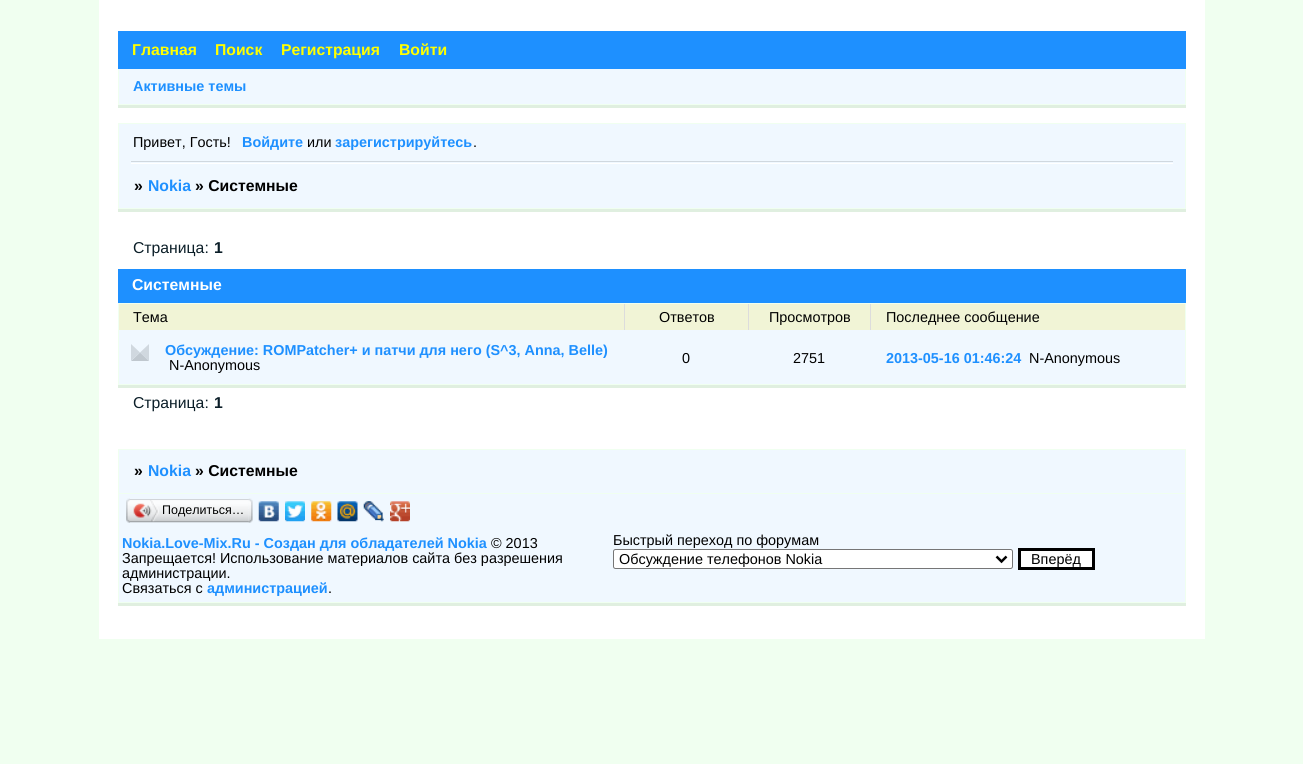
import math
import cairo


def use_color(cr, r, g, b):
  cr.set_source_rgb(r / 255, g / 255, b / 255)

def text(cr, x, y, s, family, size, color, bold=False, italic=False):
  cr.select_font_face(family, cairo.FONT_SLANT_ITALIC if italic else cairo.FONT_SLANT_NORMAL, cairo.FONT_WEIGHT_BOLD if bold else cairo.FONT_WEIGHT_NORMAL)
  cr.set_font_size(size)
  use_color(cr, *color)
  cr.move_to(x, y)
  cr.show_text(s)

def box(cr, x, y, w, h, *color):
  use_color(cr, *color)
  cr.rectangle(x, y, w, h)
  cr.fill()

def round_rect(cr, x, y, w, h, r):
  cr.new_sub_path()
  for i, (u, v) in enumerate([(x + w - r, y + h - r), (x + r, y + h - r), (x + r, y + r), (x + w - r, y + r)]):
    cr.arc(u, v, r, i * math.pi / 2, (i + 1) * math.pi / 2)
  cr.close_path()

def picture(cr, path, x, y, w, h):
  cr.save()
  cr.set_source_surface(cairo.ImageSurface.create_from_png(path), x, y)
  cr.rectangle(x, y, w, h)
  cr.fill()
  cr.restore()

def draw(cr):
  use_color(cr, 240, 255, 240)
  cr.paint()
  box(cr, 99, 0, 1106, 639, 255, 255, 255)
  box(cr, 118, 31, 1068, 38, 30, 144, 255)
  box(cr, 118, 105, 1068, 3, 224, 239, 224)
  box(cr, 119, 69, 1066, 35, 240, 248, 255)
  box(cr, 1185, 69, 1, 36, 240, 255, 240)
  box(cr, 118, 104, 1068, 1, 240, 255, 240)
  box(cr, 118, 69, 1, 36, 240, 255, 240)
  box(cr, 119, 124, 1066, 84, 240, 248, 255)
  box(cr, 118, 123, 1068, 1, 240, 255, 240)
  box(cr, 1185, 123, 1, 86, 240, 255, 240)
  box(cr, 118, 123, 1, 41, 240, 255, 240)
  box(cr, 131, 161, 1042, 1, 208, 216, 223)
  box(cr, 131, 163, 1042, 1, 255, 255, 255)
  box(cr, 118, 209, 1068, 3, 224, 239, 224)
  box(cr, 118, 208, 1068, 1, 240, 255, 240)
  box(cr, 118, 161, 1, 48, 240, 255, 240)
  box(cr, 118, 269, 1068, 34, 30, 144, 255)
  box(cr, 118, 385, 1068, 3, 224, 239, 224)
  box(cr, 119, 330, 1066, 54, 240, 248, 255)
  cr.rectangle(118.5, 303.5, 1067, 81)
  use_color(cr, 240, 255, 240)
  cr.set_line_width(1)
  cr.stroke()
  box(cr, 119, 304, 505, 26, 241, 244, 214)
  box(cr, 625, 304, 123, 26, 241, 244, 214)
  box(cr, 624, 304, 1, 26, 220, 220, 220)
  box(cr, 749, 304, 121, 26, 241, 244, 214)
  box(cr, 748, 304, 1, 26, 220, 220, 220)
  box(cr, 871, 304, 314, 26, 241, 244, 214)
  box(cr, 870, 304, 1, 26, 220, 220, 220)
  use_color(cr, 208, 216, 223)
  cr.new_path()
  cr.move_to(149, 344)
  cr.line_to(149, 361)
  cr.line_to(140, 352.5)
  cr.close_path()
  cr.fill()
  use_color(cr, 192, 200, 207)
  cr.new_path()
  cr.move_to(149, 361)
  cr.line_to(131, 361)
  cr.line_to(140, 352.5)
  cr.close_path()
  cr.fill()
  use_color(cr, 208, 216, 223)
  cr.new_path()
  cr.move_to(131, 361)
  cr.line_to(131, 344)
  cr.line_to(140, 352.5)
  cr.close_path()
  cr.fill()
  box(cr, 119, 450, 1066, 43, 240, 248, 255)
  box(cr, 118, 449, 1068, 1, 240, 255, 240)
  box(cr, 1185, 449, 1, 44, 240, 255, 240)
  box(cr, 118, 449, 1, 44, 240, 255, 240)
  box(cr, 118, 603, 1068, 3, 224, 239, 224)
  use_color(cr, 240, 248, 255)
  cr.rectangle(118.5, 493.5, 1067, 109)
  cr.fill_preserve()
  use_color(cr, 240, 255, 240)
  cr.stroke()
  picture(cr, "img_01.png", 130, 499, 119, 24)
  picture(cr, "img_02.png", 126, 498, 4, 25)
  picture(cr, "img_03.png", 133, 500, 26, 22)
  picture(cr, "img_04.png", 248, 498, 5, 25)
  picture(cr, "img_05.png", 258, 501, 21, 21)
  picture(cr, "img_06.png", 285, 501, 20, 21)
  picture(cr, "img_07.png", 311, 501, 21, 21)
  picture(cr, "img_08.png", 337, 501, 21, 21)
  picture(cr, "img_09.png", 363, 501, 21, 21)
  picture(cr, "img_10.png", 390, 501, 20, 21)
  use_color(cr, 255, 255, 255)
  round_rect(cr, 613.5, 549.5, 399, 19, 2)
  cr.fill_preserve()
  use_color(cr, 118, 118, 118)
  cr.stroke()
  cr.new_path()
  cr.move_to(996.5, 556.5)
  cr.line_to(1001.5, 561.5)
  cr.line_to(1006.5, 556.5)
  use_color(cr, 0, 0, 0)
  cr.set_line_width(2.5)
  cr.stroke()
  use_color(cr, 255, 255, 255)
  cr.rectangle(1019.5, 549.5, 74, 19)
  cr.fill_preserve()
  use_color(cr, 0, 0, 0)
  cr.set_line_width(3)
  cr.stroke()
  text(cr, 132, 55, "Главная", "Liberation Sans", 15.75, (255, 255, 0), bold=True)
  text(cr, 215, 55, "Поиск", "Liberation Sans", 15.75, (255, 255, 0), bold=True)
  text(cr, 281, 55, "Регистрация", "Liberation Sans", 15.75, (255, 255, 0), bold=True)
  text(cr, 399, 55, "Войти", "Liberation Sans", 15.75, (255, 255, 0), bold=True)
  text(cr, 133, 91, "Активные темы", "Liberation Sans", 14.4, (30, 144, 255), bold=True)
  text(cr, 133, 147, "Привет, Гость!", "Liberation Sans", 14.4, (0, 0, 0))
  text(cr, 242, 147, "Войдите", "Liberation Sans", 14.4, (30, 144, 255), bold=True)
  text(cr, 307, 147, "или", "Liberation Sans", 14.4, (0, 0, 0))
  text(cr, 335, 147, "зарегистрируйтесь", "Liberation Sans", 14.4, (30, 144, 255), bold=True)
  text(cr, 473, 147, ".", "Liberation Sans", 14.4, (0, 0, 0))
  text(cr, 134, 191, "»", "Liberation Sans", 15.75, (0, 0, 0), bold=True)
  text(cr, 148, 191, "Nokia", "Liberation Sans", 15.75, (30, 144, 255), bold=True)
  text(cr, 195, 191, "» Системные", "Liberation Sans", 15.75, (0, 0, 0), bold=True)
  text(cr, 133, 253, "Страница:", "Liberation Sans", 15.75, (11, 30, 40))
  text(cr, 214, 253, "1", "Liberation Sans", 15.75, (11, 30, 40), bold=True)
  text(cr, 132, 290, "Системные", "Liberation Sans", 15.75, (255, 255, 255), bold=True)
  text(cr, 133, 322, "Тема", "Liberation Sans", 14.4, (0, 0, 0))
  text(cr, 659, 322, "Ответов", "Liberation Sans", 14.4, (0, 0, 0))
  text(cr, 769, 322, "Просмотров", "Liberation Sans", 14.4, (0, 0, 0))
  text(cr, 886, 322, "Последнее сообщение", "Liberation Sans", 14.4, (0, 0, 0))
  text(cr, 165, 355, "Обсуждение: ROMPatcher+ и патчи для него (S^3, Anna, Belle)", "Liberation Sans", 14.4, (30, 144, 255), bold=True)
  text(cr, 169, 370, "N-Anonymous", "Liberation Sans", 14.4, (0, 0, 0))
  text(cr, 682, 363, "0", "Liberation Sans", 14.4, (0, 0, 0))
  text(cr, 793, 363, "2751", "Liberation Sans", 14.4, (0, 0, 0))
  text(cr, 886, 363, "2013-05-16 01:46:24", "Liberation Sans", 14.4, (30, 144, 255), bold=True)
  text(cr, 1029, 363, "N-Anonymous", "Liberation Sans", 14.4, (0, 0, 0))
  text(cr, 133, 408, "Страница:", "Liberation Sans", 15.75, (11, 30, 40))
  text(cr, 214, 408, "1", "Liberation Sans", 15.75, (11, 30, 40), bold=True)
  text(cr, 134, 476, "»", "Liberation Sans", 15.75, (0, 0, 0), bold=True)
  text(cr, 148, 476, "Nokia", "Liberation Sans", 15.75, (30, 144, 255), bold=True)
  text(cr, 195, 476, "» Системные", "Liberation Sans", 15.75, (0, 0, 0), bold=True)
  text(cr, 162, 514, "Поделиться…", "Liberation Sans", 12.5, (0, 0, 0))
  text(cr, 122, 548, "Nokia.Love-Mix.Ru - Создан для обладателей Nokia", "Liberation Sans", 14.4, (30, 144, 255), bold=True)
  text(cr, 491, 548, "© 2013", "Liberation Sans", 14.4, (0, 0, 0))
  text(cr, 122, 563, "Запрещается! Использование материалов сайта без разрешения", "Liberation Sans", 14.4, (0, 0, 0))
  text(cr, 122, 578, "администрации.", "Liberation Sans", 14.4, (0, 0, 0))
  text(cr, 122, 593, "Связаться с", "Liberation Sans", 14.4, (0, 0, 0))
  text(cr, 207, 593, "администрацией", "Liberation Sans", 14.4, (30, 144, 255), bold=True)
  text(cr, 328, 593, ".", "Liberation Sans", 14.4, (0, 0, 0))
  text(cr, 613, 545, "Быстрый переход по форумам", "Liberation Sans", 14.4, (0, 0, 0))
  text(cr, 619, 564, "Обсуждение телефонов Nokia", "Liberation Sans", 14.4, (0, 0, 0))
  text(cr, 1031, 564, "Вперёд", "Liberation Sans", 14.4, (0, 0, 0))


surface = cairo.ImageSurface(cairo.FORMAT_RGB24, 1303, 764)
cr = cairo.Context(surface)
options = cairo.FontOptions()
options.set_hint_metrics(cairo.HINT_METRICS_OFF)
options.set_hint_style(cairo.HINT_STYLE_NONE)
cr.set_font_options(options)
cr.set_miter_limit(4)
draw(cr)
surface.write_to_png("out.png")
